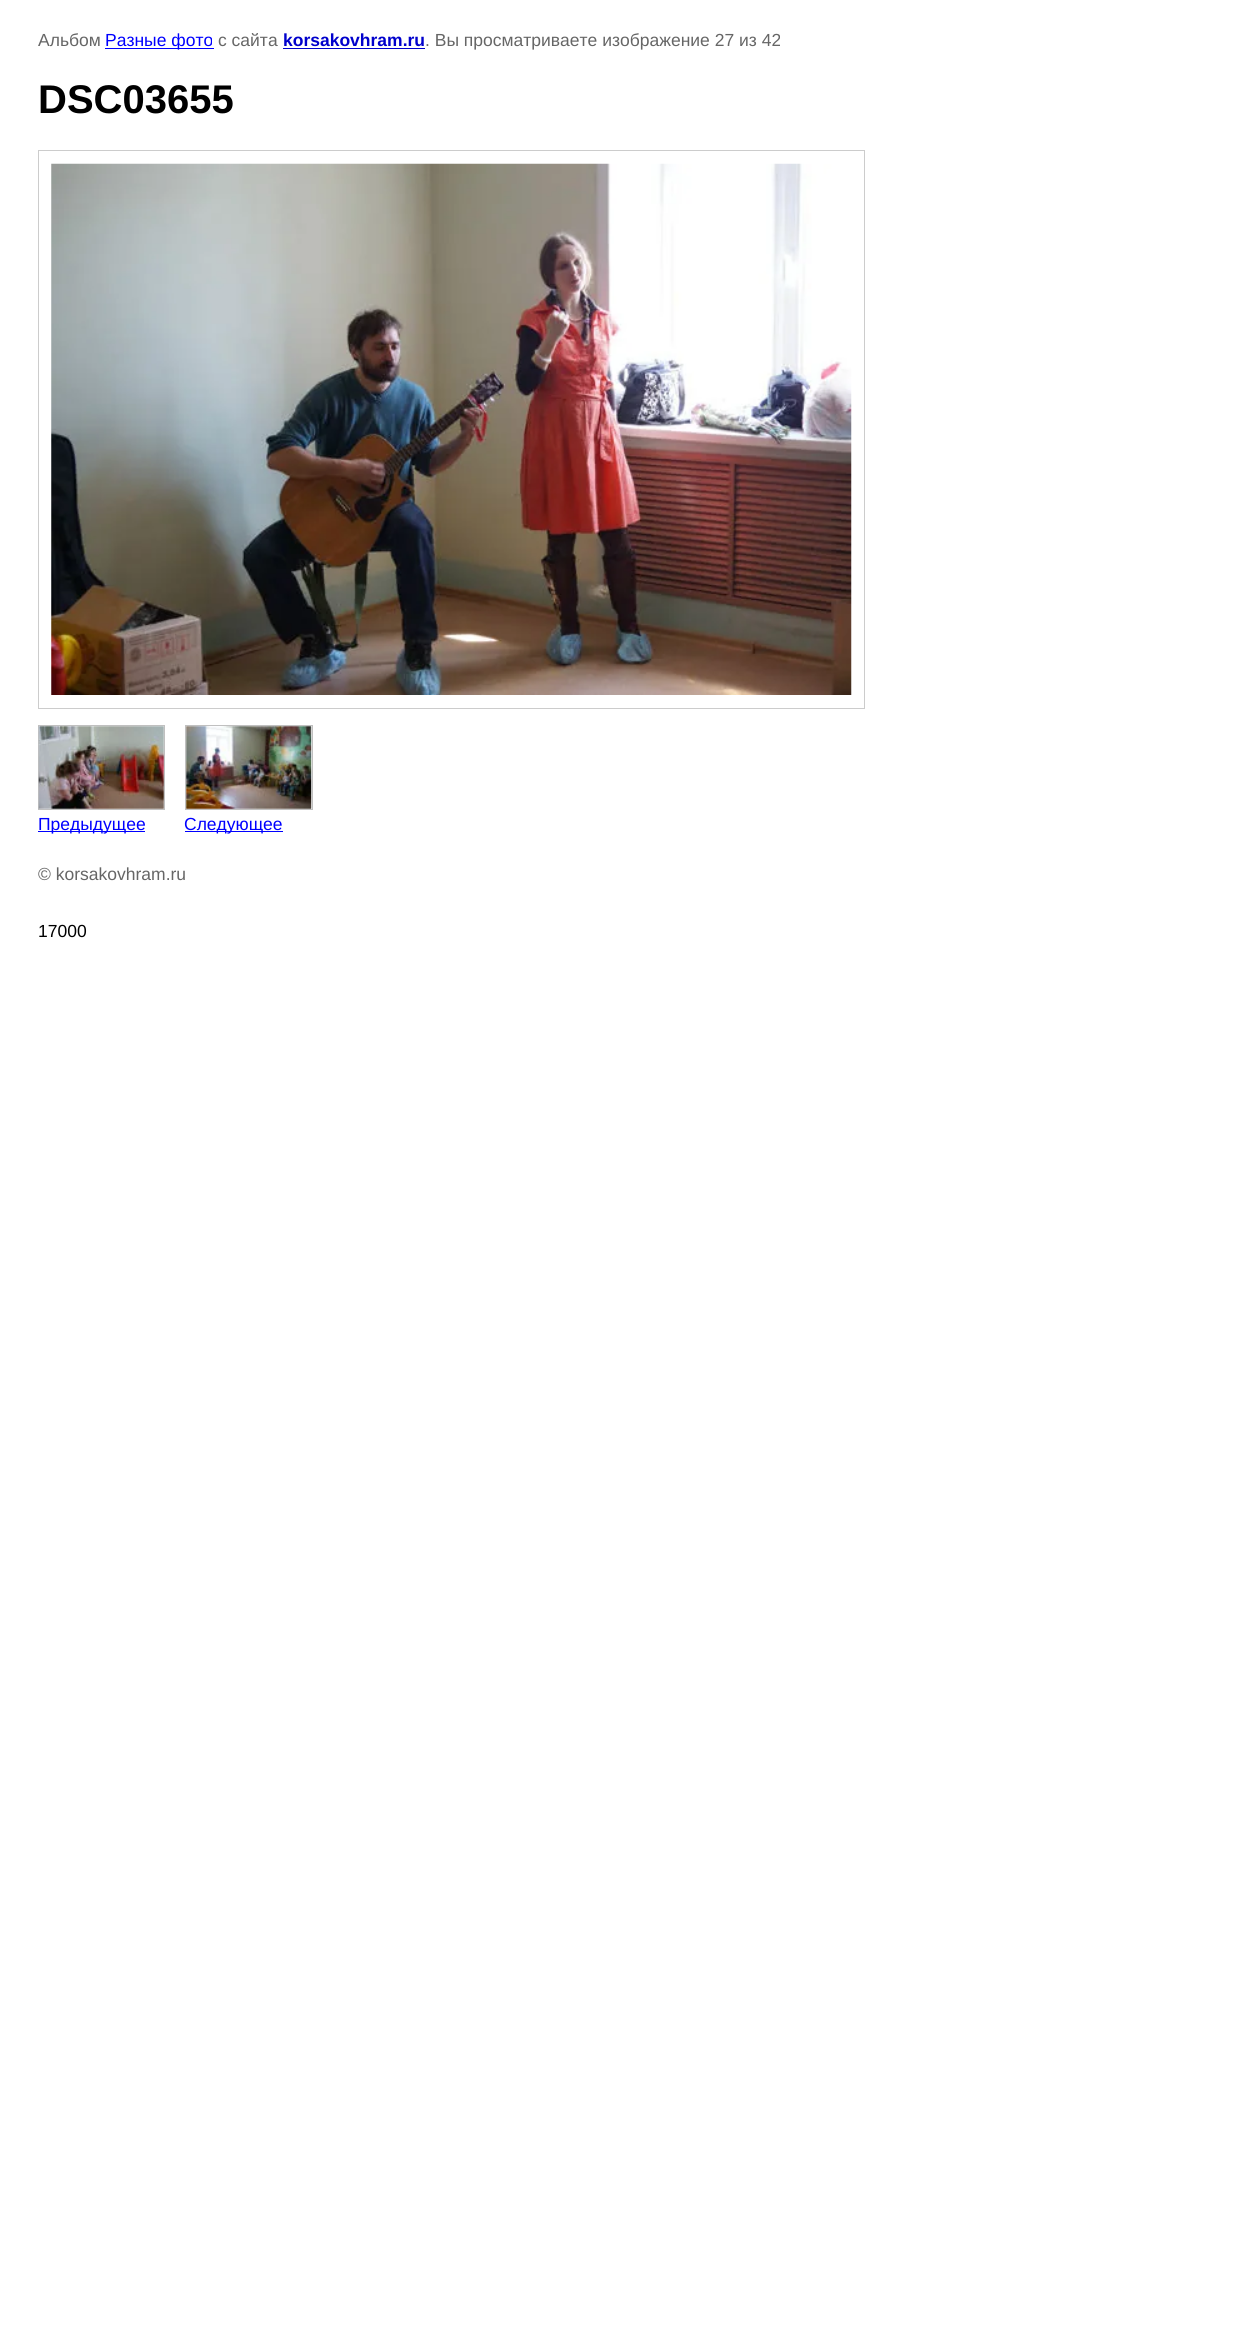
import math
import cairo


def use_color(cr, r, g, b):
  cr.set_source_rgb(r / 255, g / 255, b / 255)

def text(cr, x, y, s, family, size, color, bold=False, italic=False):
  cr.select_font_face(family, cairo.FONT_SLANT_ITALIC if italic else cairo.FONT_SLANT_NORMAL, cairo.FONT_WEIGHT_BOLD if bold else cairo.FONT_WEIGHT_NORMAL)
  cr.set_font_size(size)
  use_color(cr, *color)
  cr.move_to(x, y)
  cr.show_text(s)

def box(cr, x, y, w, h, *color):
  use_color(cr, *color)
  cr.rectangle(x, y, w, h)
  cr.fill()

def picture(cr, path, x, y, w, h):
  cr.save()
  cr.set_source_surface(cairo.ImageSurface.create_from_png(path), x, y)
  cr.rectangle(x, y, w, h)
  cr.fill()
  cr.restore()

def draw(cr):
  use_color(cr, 255, 255, 255)
  cr.paint()
  box(cr, 105, 48, 109, 1, 0, 0, 255)
  box(cr, 283, 48, 142, 1, 0, 0, 204)
  cr.rectangle(38.5, 150.5, 826, 558)
  use_color(cr, 204, 204, 204)
  cr.set_line_width(1)
  cr.stroke()
  picture(cr, "img_01.png", 51, 163, 801, 532)
  cr.rectangle(38.5, 725.5, 126, 84)
  use_color(cr, 192, 192, 192)
  cr.stroke()
  picture(cr, "img_02.png", 38, 726, 126, 83)
  box(cr, 38, 831, 107, 1, 0, 0, 255)
  cr.rectangle(185.5, 725.5, 127, 84)
  use_color(cr, 192, 192, 192)
  cr.stroke()
  picture(cr, "img_03.png", 186, 726, 126, 83)
  box(cr, 185, 831, 98, 1, 0, 0, 255)
  text(cr, 38, 46, "Альбом", "Liberation Sans", 17.5, (102, 102, 102))
  text(cr, 105, 46, "Разные фото", "Liberation Sans", 17.5, (0, 0, 255))
  text(cr, 218, 46, "с сайта", "Liberation Sans", 17.5, (102, 102, 102))
  text(cr, 283, 46, "korsakovhram.ru", "Liberation Sans", 17.5, (0, 0, 204), bold=True)
  text(cr, 425, 46, ". Вы просматриваете изображение 27 из 42", "Liberation Sans", 17.5, (102, 102, 102))
  text(cr, 38, 113, "DSC03655", "Liberation Sans", 40, (0, 0, 0), bold=True)
  text(cr, 38, 830, "Предыдущее", "Liberation Sans", 17.5, (0, 0, 255))
  text(cr, 184, 830, "Следующее", "Liberation Sans", 17.5, (0, 0, 255))
  text(cr, 38, 880, "© korsakovhram.ru", "Liberation Sans", 17.5, (102, 102, 102))
  text(cr, 38, 937, "17000", "Liberation Sans", 17.5, (0, 0, 0))


surface = cairo.ImageSurface(cairo.FORMAT_RGB24, 1259, 2349)
cr = cairo.Context(surface)
options = cairo.FontOptions()
options.set_hint_metrics(cairo.HINT_METRICS_OFF)
options.set_hint_style(cairo.HINT_STYLE_NONE)
cr.set_font_options(options)
cr.set_miter_limit(4)
draw(cr)
surface.write_to_png("out.png")
